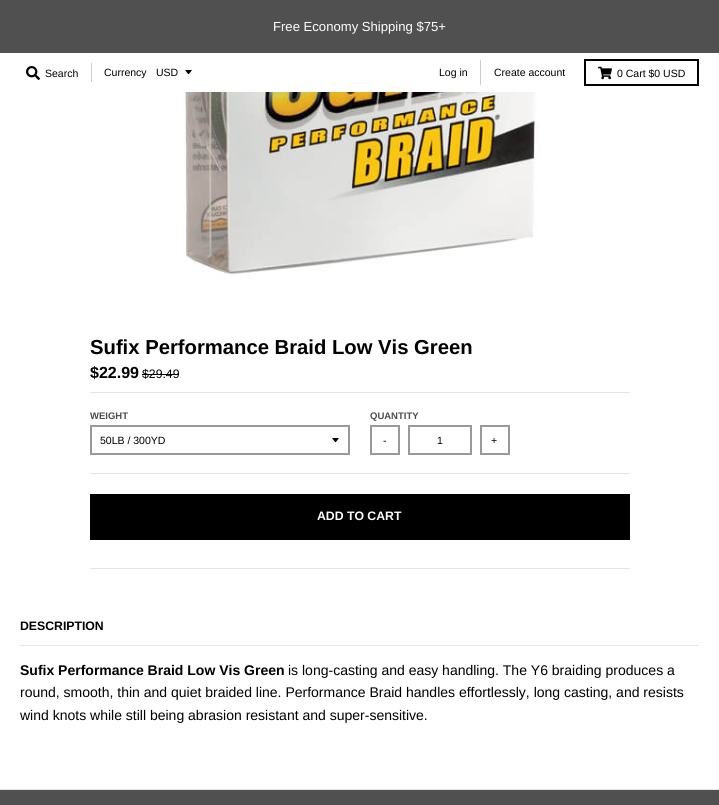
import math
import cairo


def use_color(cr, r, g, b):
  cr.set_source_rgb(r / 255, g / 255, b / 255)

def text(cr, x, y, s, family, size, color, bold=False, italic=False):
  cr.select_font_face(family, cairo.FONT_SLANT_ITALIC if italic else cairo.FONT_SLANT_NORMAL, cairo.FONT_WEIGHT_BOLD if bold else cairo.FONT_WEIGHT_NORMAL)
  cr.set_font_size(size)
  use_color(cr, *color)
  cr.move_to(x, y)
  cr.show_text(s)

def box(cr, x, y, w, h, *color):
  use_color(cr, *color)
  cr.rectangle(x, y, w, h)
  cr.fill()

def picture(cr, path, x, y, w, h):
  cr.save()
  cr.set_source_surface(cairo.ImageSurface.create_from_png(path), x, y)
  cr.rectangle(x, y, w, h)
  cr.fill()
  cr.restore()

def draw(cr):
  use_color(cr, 255, 255, 255)
  cr.paint()
  box(cr, 0, 0, 719, 53, 80, 80, 80)
  picture(cr, "img_01.png", 26, 66, 14, 14)
  box(cr, 91, 63, 1, 19, 204, 204, 204)
  use_color(cr, 0, 0, 0)
  cr.new_path()
  cr.move_to(185, 70)
  cr.curve_to(189.5, 75.5, 187.5, 75.5, 192, 70)
  cr.close_path()
  cr.fill()
  box(cr, 480, 60, 1, 25, 204, 204, 204)
  cr.rectangle(585, 60, 113, 25)
  use_color(cr, 0, 0, 0)
  cr.stroke()
  picture(cr, "img_02.png", 598, 66, 14, 14)
  box(cr, 0, 789, 719, 1, 229, 229, 229)
  picture(cr, "img_03.png", 182, 92, 358, 187)
  box(cr, 90, 568, 540, 1, 229, 229, 229)
  box(cr, 90, 392, 540, 1, 229, 229, 229)
  box(cr, 142, 374, 37, 1, 0, 0, 0)
  box(cr, 90, 473, 540, 1, 229, 229, 229)
  use_color(cr, 0, 0, 0)
  cr.new_path()
  cr.move_to(332, 438)
  cr.curve_to(336.5, 443.5, 334.5, 443.5, 339, 438)
  cr.close_path()
  cr.fill()
  cr.rectangle(91, 426, 258, 28)
  use_color(cr, 153, 153, 153)
  cr.stroke()
  cr.rectangle(371, 426, 28, 28)
  cr.stroke()
  cr.rectangle(409, 426, 62, 28)
  cr.stroke()
  cr.rectangle(481, 426, 28, 28)
  cr.stroke()
  box(cr, 90, 494, 540, 46, 0, 0, 0)
  box(cr, 20, 645, 679, 1, 229, 229, 229)
  box(cr, 0, 790, 719, 15, 80, 80, 80)
  text(cr, 273, 31, "Free Economy Shipping $75+", "Arimo", 13.1, (255, 255, 255))
  text(cr, 45, 77, "Search", "Arimo", 10.5, (0, 0, 0))
  text(cr, 104, 76, "Currency", "Arimo", 10.5, (0, 0, 0))
  text(cr, 156, 76, "USD", "Arimo", 10.5, (0, 0, 0))
  text(cr, 439, 76, "Log in", "Arimo", 10.5, (0, 0, 0))
  text(cr, 494, 76, "Create account", "Arimo", 10.5, (0, 0, 0))
  text(cr, 617, 77, "0 Cart $0 USD", "Arimo", 10.5, (0, 0, 0))
  text(cr, 90, 354, "Sufix Performance Braid Low Vis Green", "Arimo", 20.25, (0, 0, 0), bold=True)
  text(cr, 90, 378, "$22.99", "Arimo", 16, (0, 0, 0), bold=True)
  text(cr, 142, 378, "$29.49", "Arimo", 12.25, (0, 0, 0))
  text(cr, 90, 419, "WEIGHT", "Arimo", 9.5, (76, 76, 76), bold=True)
  text(cr, 100, 444, "50LB / 300YD", "Arimo", 10.5, (0, 0, 0))
  text(cr, 370, 419, "QUANTITY", "Arimo", 9.5, (76, 76, 76), bold=True)
  text(cr, 383, 444, "-", "Arimo", 10.5, (0, 0, 0))
  text(cr, 437, 444, "1", "Arimo", 10.5, (0, 0, 0))
  text(cr, 491, 444, "+", "Arimo", 10.5, (0, 0, 0))
  text(cr, 317, 520, "ADD TO CART", "Arimo", 12.25, (255, 255, 255), bold=True)
  text(cr, 20, 630, "DESCRIPTION", "Arimo", 12.25, (0, 0, 0), bold=True)
  text(cr, 20, 675, "Sufix Performance Braid Low Vis Green", "Arimo", 14, (0, 0, 0), bold=True)
  text(cr, 288, 675, "is long-casting and easy handling. The Y6 braiding produces a", "Arimo", 14, (0, 0, 0))
  text(cr, 20, 697, "round, smooth, thin and quiet braided line. Performance Braid handles effortlessly, long casting, and resists", "Arimo", 14, (0, 0, 0))
  text(cr, 20, 720, "wind knots while still being abrasion resistant and super-sensitive.", "Arimo", 14, (0, 0, 0))


surface = cairo.ImageSurface(cairo.FORMAT_RGB24, 719, 805)
cr = cairo.Context(surface)
options = cairo.FontOptions()
options.set_hint_metrics(cairo.HINT_METRICS_OFF)
options.set_hint_style(cairo.HINT_STYLE_NONE)
cr.set_font_options(options)
cr.set_miter_limit(4)
draw(cr)
surface.write_to_png("out.png")
